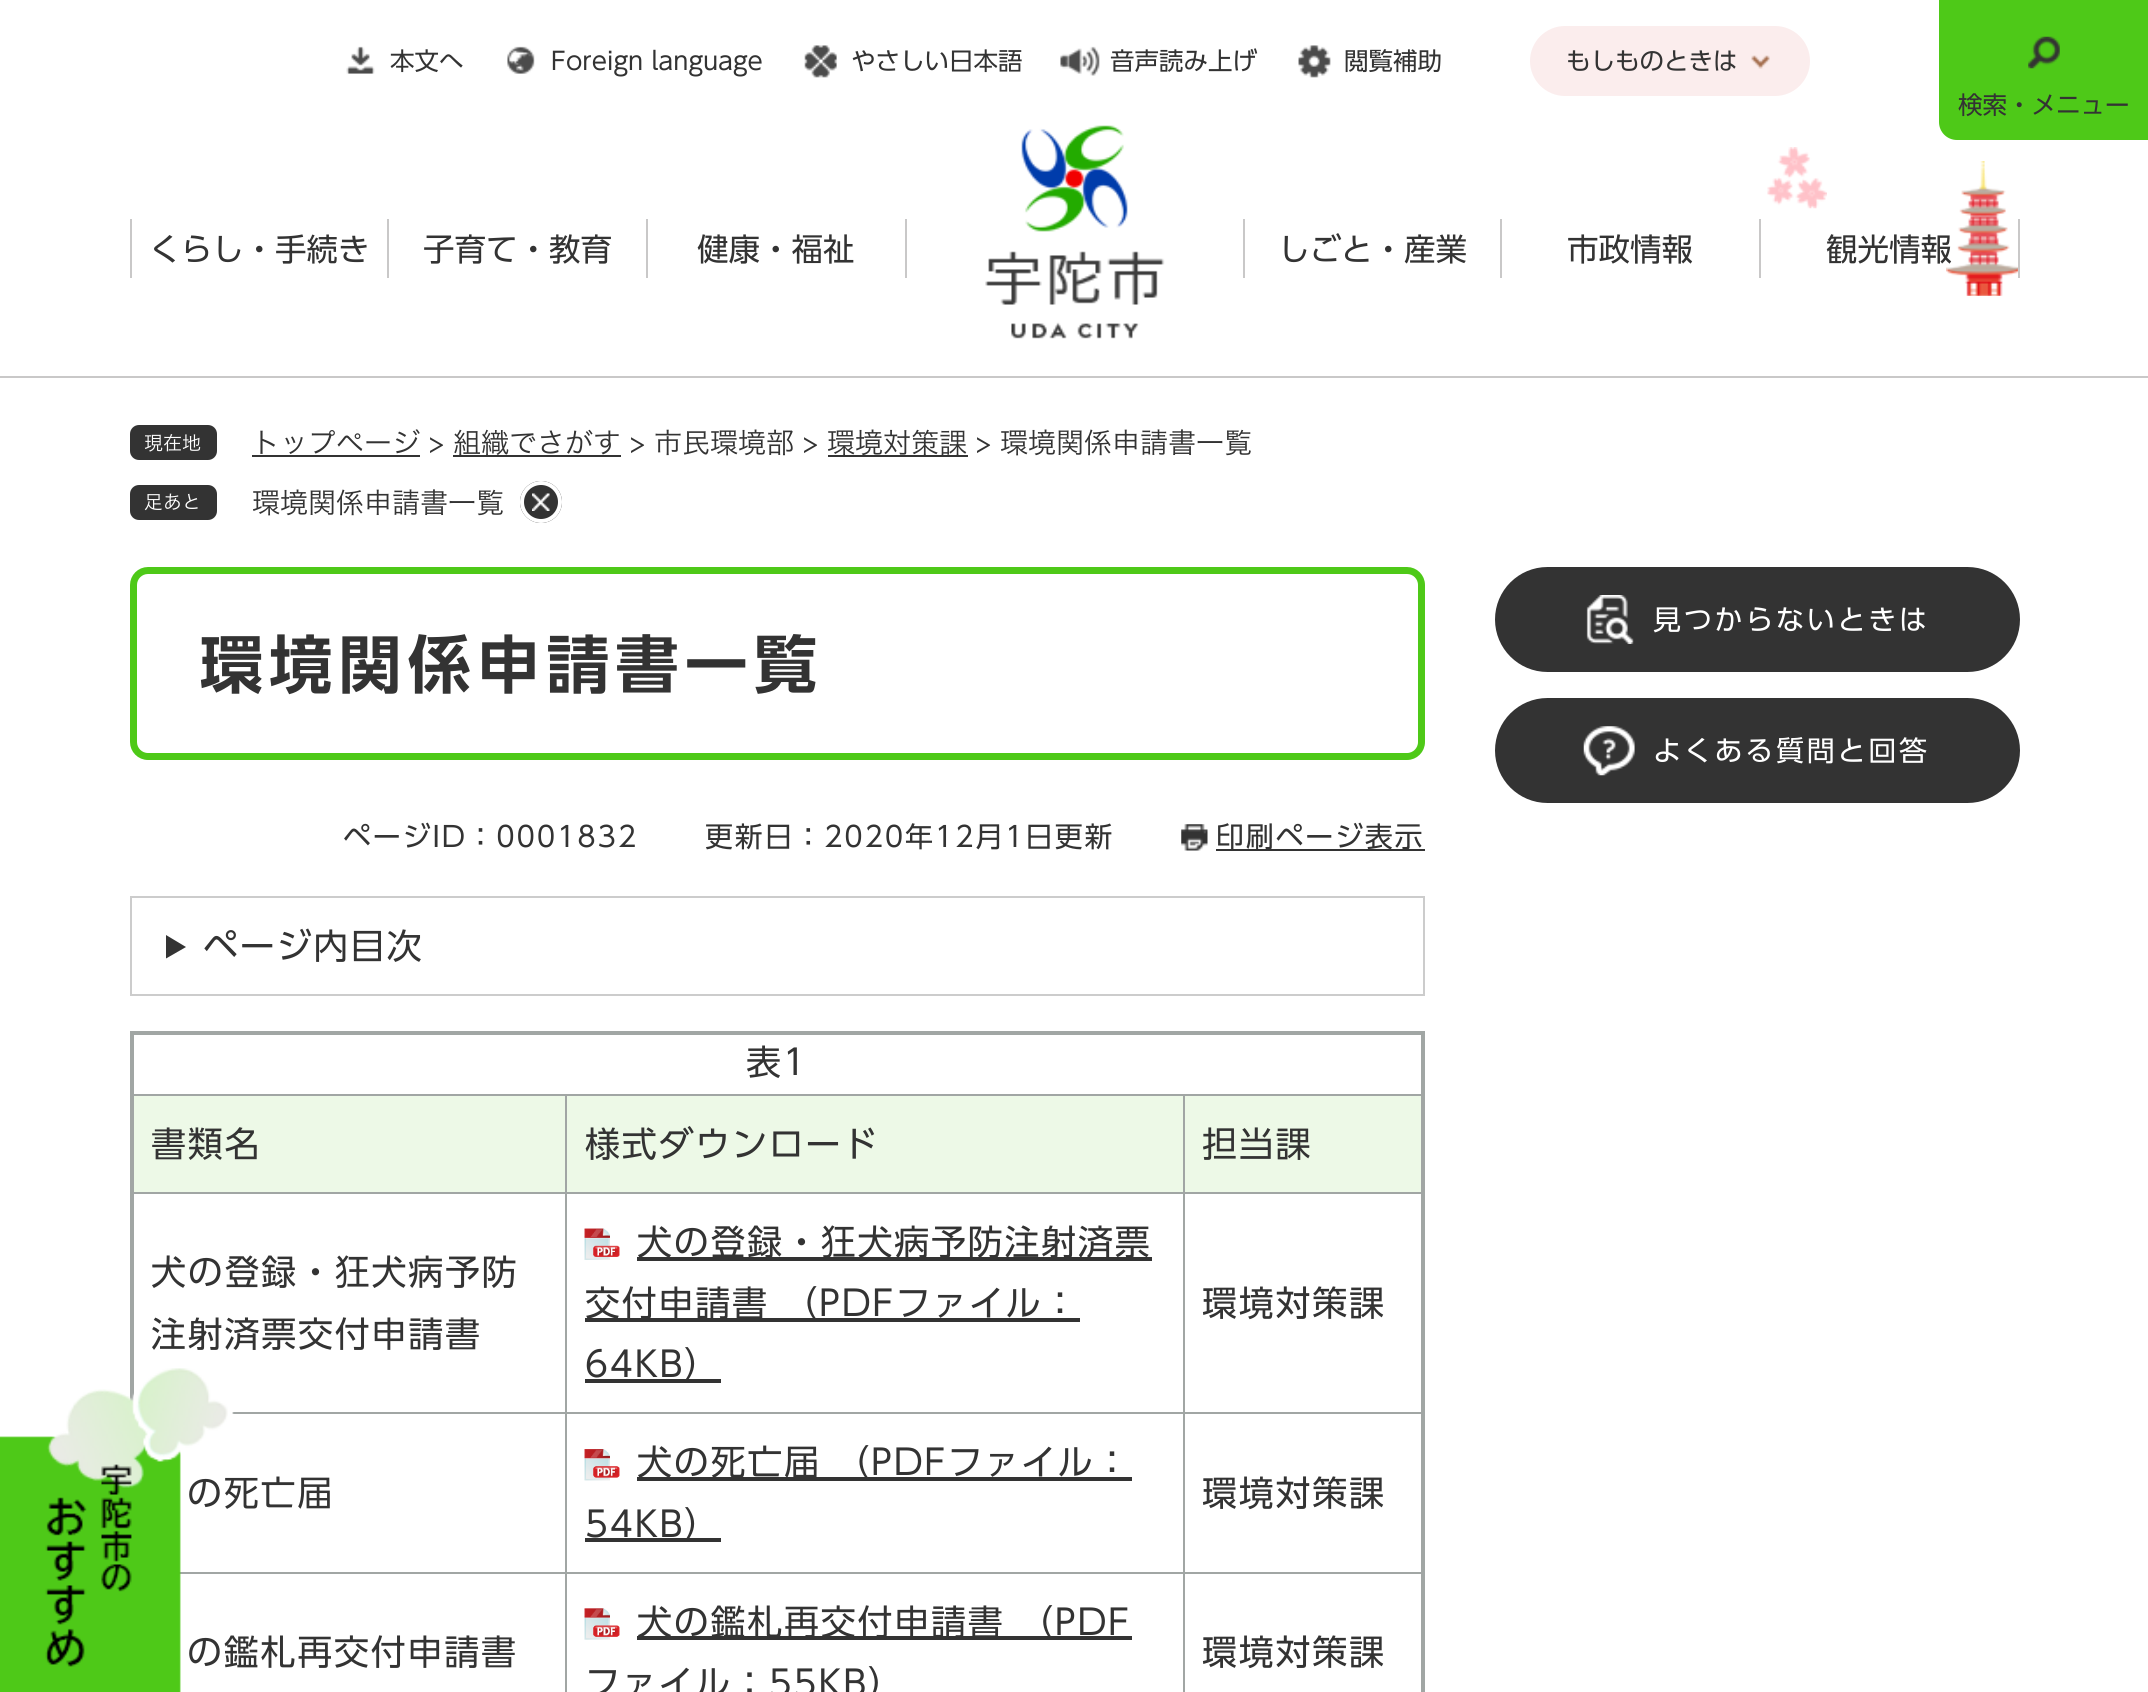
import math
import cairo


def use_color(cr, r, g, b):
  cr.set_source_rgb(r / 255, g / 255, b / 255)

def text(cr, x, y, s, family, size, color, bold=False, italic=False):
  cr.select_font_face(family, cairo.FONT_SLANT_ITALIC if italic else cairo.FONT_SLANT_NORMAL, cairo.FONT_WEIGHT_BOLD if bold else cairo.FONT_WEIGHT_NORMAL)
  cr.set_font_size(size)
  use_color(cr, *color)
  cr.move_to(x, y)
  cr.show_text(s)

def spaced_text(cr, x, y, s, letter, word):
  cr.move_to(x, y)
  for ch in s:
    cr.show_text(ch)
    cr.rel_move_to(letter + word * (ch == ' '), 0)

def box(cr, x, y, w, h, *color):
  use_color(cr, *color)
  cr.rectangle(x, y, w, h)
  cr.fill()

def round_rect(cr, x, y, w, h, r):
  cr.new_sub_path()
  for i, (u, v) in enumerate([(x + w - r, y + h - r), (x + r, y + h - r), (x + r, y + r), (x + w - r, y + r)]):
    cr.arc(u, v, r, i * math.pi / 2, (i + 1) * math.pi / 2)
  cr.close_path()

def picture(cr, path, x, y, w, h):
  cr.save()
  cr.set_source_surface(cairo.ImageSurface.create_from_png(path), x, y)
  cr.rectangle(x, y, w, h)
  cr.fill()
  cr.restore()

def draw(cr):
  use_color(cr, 255, 255, 255)
  cr.paint()
  box(cr, 0, 376, 2148, 2, 201, 200, 200)
  picture(cr, "img_01.png", 346, 46, 29, 28)
  picture(cr, "img_02.png", 507, 46, 28, 28)
  picture(cr, "img_03.png", 804, 45, 33, 33)
  picture(cr, "img_04.png", 1060, 46, 40, 30)
  picture(cr, "img_05.png", 1298, 45, 33, 33)
  use_color(cr, 251, 237, 237)
  round_rect(cr, 1530, 26, 280, 70, 35)
  cr.fill()
  picture(cr, "img_06.png", 1751, 55, 19, 14)
  picture(cr, "img_07.png", 1767, 147, 251, 149)
  box(cr, 387, 219, 2, 59, 201, 200, 200)
  box(cr, 130, 219, 2, 59, 201, 200, 200)
  box(cr, 646, 219, 2, 59, 201, 200, 200)
  box(cr, 905, 219, 2, 59, 201, 200, 200)
  box(cr, 1500, 219, 2, 59, 201, 200, 200)
  box(cr, 1243, 219, 2, 59, 201, 200, 200)
  box(cr, 1759, 219, 2, 59, 201, 200, 200)
  box(cr, 2018, 219, 2, 59, 201, 200, 200)
  picture(cr, "img_08.png", 985, 125, 180, 214)
  use_color(cr, 78, 201, 24)
  cr.new_path()
  cr.move_to(1939, 0)
  cr.line_to(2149, 0)
  cr.line_to(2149, 140)
  cr.line_to(1957, 140)
  cr.curve_to(1947, 140, 1939, 132, 1939, 122)
  cr.close_path()
  cr.fill()
  picture(cr, "img_09.png", 2028, 36, 32, 33)
  use_color(cr, 51, 51, 51)
  round_rect(cr, 130, 425, 87, 35, 9)
  cr.fill()
  box(cr, 252, 455, 168, 2, 51, 51, 51)
  box(cr, 453, 455, 168, 2, 51, 51, 51)
  box(cr, 828, 455, 140, 2, 51, 51, 51)
  round_rect(cr, 130, 485, 87, 35, 9)
  cr.fill()
  cr.arc(541, 502, 21, 0, 2 * math.pi)
  cr.fill()
  picture(cr, "img_11.png", 532, 493, 18, 18)
  cr.arc(541, 502, 19, 0, 2 * math.pi)
  use_color(cr, 255, 255, 255)
  cr.set_line_width(4)
  cr.stroke()
  round_rect(cr, 133.5, 570.5, 1288, 186, 14.5)
  use_color(cr, 78, 201, 24)
  cr.set_line_width(7)
  cr.stroke()
  picture(cr, "img_12.png", 1181, 824, 27, 27)
  box(cr, 1216, 849, 209, 2, 51, 51, 51)
  cr.rectangle(131, 897, 1293, 98)
  use_color(cr, 204, 204, 204)
  cr.set_line_width(2)
  cr.stroke()
  use_color(cr, 51, 51, 51)
  cr.new_path()
  cr.move_to(166, 935)
  cr.line_to(186, 947)
  cr.line_to(166, 958.5)
  cr.close_path()
  cr.fill()
  box(cr, 130, 1031, 1295, 4, 161, 166, 164)
  box(cr, 1183, 1094, 242, 2, 161, 166, 164)
  box(cr, 1183, 1192, 242, 2, 161, 166, 164)
  box(cr, 1183, 1412, 242, 2, 161, 166, 164)
  box(cr, 1183, 1572, 242, 2, 161, 166, 164)
  box(cr, 1421, 1031, 4, 661, 161, 166, 164)
  box(cr, 1183, 1572, 2, 120, 161, 166, 164)
  box(cr, 565, 1572, 620, 2, 161, 166, 164)
  box(cr, 1183, 1412, 2, 161, 161, 166, 164)
  box(cr, 565, 1412, 620, 2, 161, 166, 164)
  box(cr, 1183, 1192, 2, 222, 161, 166, 164)
  box(cr, 565, 1192, 620, 2, 161, 166, 164)
  box(cr, 1183, 1094, 2, 100, 161, 166, 164)
  box(cr, 565, 1094, 620, 2, 161, 166, 164)
  box(cr, 565, 1572, 2, 120, 161, 166, 164)
  box(cr, 179, 1572, 388, 2, 161, 166, 164)
  box(cr, 565, 1412, 2, 161, 161, 166, 164)
  box(cr, 232, 1412, 335, 2, 161, 166, 164)
  box(cr, 565, 1192, 2, 222, 161, 166, 164)
  box(cr, 131, 1192, 436, 2, 161, 166, 164)
  box(cr, 565, 1094, 2, 100, 161, 166, 164)
  box(cr, 131, 1094, 436, 2, 161, 166, 164)
  box(cr, 130, 1031, 4, 372, 161, 166, 164)
  box(cr, 134, 1096, 431, 96, 237, 249, 231)
  box(cr, 567, 1096, 616, 96, 237, 249, 231)
  box(cr, 1185, 1096, 236, 96, 237, 249, 231)
  picture(cr, "img_13.png", 584, 1228, 36, 32)
  box(cr, 637, 1257, 515, 4, 51, 51, 51)
  box(cr, 585, 1318, 495, 4, 51, 51, 51)
  box(cr, 585, 1379, 136, 4, 51, 51, 51)
  picture(cr, "img_14.png", 584, 1449, 36, 32)
  box(cr, 637, 1477, 495, 4, 51, 51, 51)
  box(cr, 585, 1538, 136, 4, 51, 51, 51)
  picture(cr, "img_15.png", 584, 1608, 36, 32)
  box(cr, 637, 1636, 495, 4, 51, 51, 51)
  round_rect(cr, 1495, 567, 525, 105, 52.5)
  cr.fill()
  picture(cr, "img_16.png", 1586, 595, 48, 49)
  round_rect(cr, 1495, 698, 525, 105, 52.5)
  cr.fill()
  picture(cr, "img_17.png", 1583, 726, 52, 50)
  text(cr, 390, 70, "本文へ", "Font", 24.5, (51, 51, 51))
  text(cr, 551, 70, "Foreign language", "Font", 24.5, (51, 51, 51))
  text(cr, 851, 70, "やさしい日本語", "Font", 24.5, (51, 51, 51))
  text(cr, 1110, 70, "音声読み上げ", "Font", 24.5, (51, 51, 51))
  text(cr, 1344, 70, "閲覧補助", "Font", 24.5, (51, 51, 51))
  text(cr, 1566, 70, "もしものときは", "Font", 24.5, (51, 51, 51))
  text(cr, 149, 261, "くらし・手続き", "Font", 31.5, (51, 51, 51))
  text(cr, 423, 261, "子育て・教育", "Font", 31.5, (51, 51, 51))
  text(cr, 697, 261, "健康・福祉", "Font", 31.5, (51, 51, 51))
  text(cr, 1278, 261, "しごと・産業", "Font", 31.5, (51, 51, 51))
  text(cr, 1567, 261, "市政情報", "Font", 31.5, (51, 51, 51))
  text(cr, 1826, 261, "観光情報", "Font", 31.5, (51, 51, 51))
  text(cr, 1958, 114, "検索・メニュー", "Font", 24.5, (51, 51, 51))
  text(cr, 144, 450, "現在地", "Font Light", 19, (255, 255, 255))
  text(cr, 252, 453, "トップページ >", "Font Light", 28, (51, 51, 51))
  text(cr, 453, 453, "組織でさがす > 市民環境部 >", "Font Light", 28, (51, 51, 51))
  text(cr, 827, 453, "環境対策課 > 環境関係申請書一覧", "Font Light", 28, (51, 51, 51))
  text(cr, 144, 509, "足あと", "Font Light", 19, (255, 255, 255))
  text(cr, 252, 513, "環境関係申請書一覧", "Font Light", 28, (51, 51, 51))
  cr.select_font_face("Font SemiBold")
  cr.set_font_size(63)
  spaced_text(cr, 200, 688, "環境関係申請書一覧", 6.25, 0)
  cr.select_font_face("Font")
  cr.set_font_size(28)
  spaced_text(cr, 343, 847, "ページID：0001832", 1.75, 0)
  spaced_text(cr, 705, 847, "更新日：2020年12月1日更新", 1.75, 0)
  spaced_text(cr, 1216, 847, "印刷ページ表示", 1.75, 0)
  cr.set_font_size(35)
  spaced_text(cr, 203, 959, "ページ内目次", 1.75, 0)
  spaced_text(cr, 746, 1075, "表1", 1.75, 0)
  spaced_text(cr, 151, 1157, "書類名", 1.75, 0)
  spaced_text(cr, 585, 1157, "様式ダウンロード", 1.75, 0)
  spaced_text(cr, 1202, 1157, "担当課", 1.75, 0)
  spaced_text(cr, 151, 1285, "犬の登録・狂犬病予防", 1.75, 0)
  spaced_text(cr, 151, 1347, "注射済票交付申請書", 1.75, 0)
  spaced_text(cr, 637, 1255, "犬の登録・狂犬病予防注射済票", 1.75, 0)
  spaced_text(cr, 585, 1316, "交付申請書 （PDFファイル：", 1.75, 0)
  spaced_text(cr, 585, 1377, "64KB）", 1.75, 0)
  spaced_text(cr, 1202, 1316, "環境対策課", 1.75, 0)
  spaced_text(cr, 187, 1506, "の死亡届", 1.75, 0)
  spaced_text(cr, 637, 1475, "犬の死亡届 （PDFファイル：", 1.75, 0)
  spaced_text(cr, 585, 1537, "54KB）", 1.75, 0)
  spaced_text(cr, 1202, 1506, "環境対策課", 1.75, 0)
  spaced_text(cr, 187, 1665, "の鑑札再交付申請書", 1.75, 0)
  picture(cr, "img_10.png", 0, 1368, 234, 324)
  spaced_text(cr, 637, 1635, "犬の鑑札再交付申請書 （PDF", 1.75, 0)
  spaced_text(cr, 585, 1696, "ファイル：55KB）", 1.75, 0)
  spaced_text(cr, 1202, 1665, "環境対策課", 1.75, 0)
  cr.set_font_size(28)
  use_color(cr, 255, 255, 255)
  spaced_text(cr, 1653, 630, "見つからないときは", 2.75, 0)
  spaced_text(cr, 1653, 761, "よくある質問と回答", 2.75, 0)


surface = cairo.ImageSurface(cairo.FORMAT_RGB24, 2148, 1692)
cr = cairo.Context(surface)
options = cairo.FontOptions()
options.set_hint_metrics(cairo.HINT_METRICS_OFF)
options.set_hint_style(cairo.HINT_STYLE_NONE)
cr.set_font_options(options)
cr.set_miter_limit(4)
draw(cr)
surface.write_to_png("out.png")
